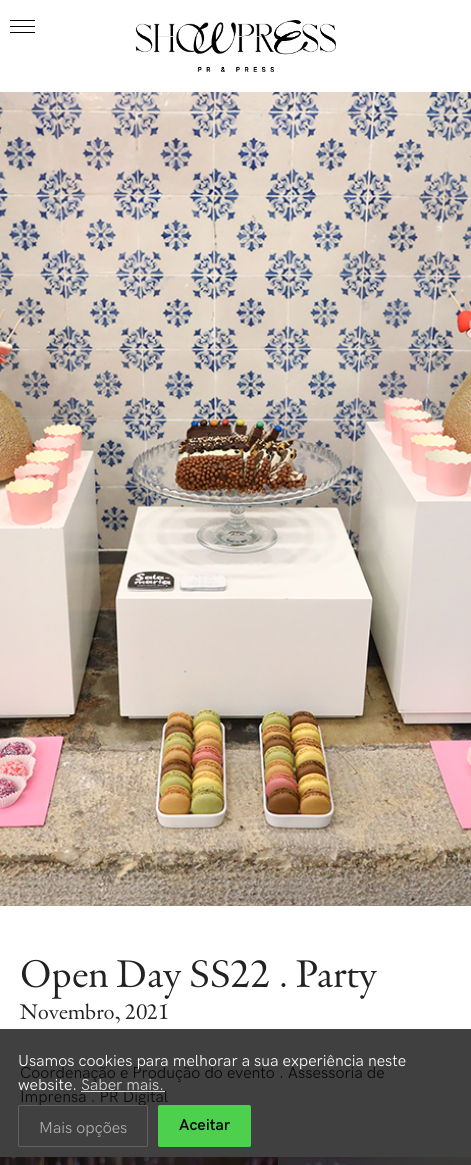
import math
import cairo


def use_color(cr, r, g, b):
  cr.set_source_rgb(r / 255, g / 255, b / 255)

def text(cr, x, y, s, family, size, color, bold=False, italic=False):
  cr.select_font_face(family, cairo.FONT_SLANT_ITALIC if italic else cairo.FONT_SLANT_NORMAL, cairo.FONT_WEIGHT_BOLD if bold else cairo.FONT_WEIGHT_NORMAL)
  cr.set_font_size(size)
  use_color(cr, *color)
  cr.move_to(x, y)
  cr.show_text(s)

def box(cr, x, y, w, h, *color):
  use_color(cr, *color)
  cr.rectangle(x, y, w, h)
  cr.fill()

def round_rect(cr, x, y, w, h, r):
  cr.new_sub_path()
  for i, (u, v) in enumerate([(x + w - r, y + h - r), (x + r, y + h - r), (x + r, y + r), (x + w - r, y + r)]):
    cr.arc(u, v, r, i * math.pi / 2, (i + 1) * math.pi / 2)
  cr.close_path()

def picture(cr, path, x, y, w, h):
  cr.save()
  cr.set_source_surface(cairo.ImageSurface.create_from_png(path), x, y)
  cr.rectangle(x, y, w, h)
  cr.fill()
  cr.restore()

def draw(cr):
  use_color(cr, 255, 255, 255)
  cr.paint()
  box(cr, 0, 1029, 471, 136, 64, 64, 64)
  box(cr, 10, 20, 25, 1, 0, 0, 0)
  box(cr, 10, 26, 25, 1, 0, 0, 0)
  box(cr, 10, 32, 25, 1, 0, 0, 0)
  picture(cr, "img_01.png", 135, 20, 201, 52)
  picture(cr, "img_02.png", 0, 92, 471, 814)
  picture(cr, "img_03.png", 0, 1157, 278, 8)
  picture(cr, "img_04.png", 278, 1157, 193, 8)
  text(cr, 20, 987, "Open Day SS22 . Party", "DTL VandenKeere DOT", 40, (34, 34, 34))
  text(cr, 20, 1019, "Novembro, 2021", "DTL VandenKeere DOT", 22, (34, 34, 34))
  text(cr, 20, 1078, "Coordenação e Produção do evento . Assessoria de", "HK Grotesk", 16, (9, 9, 9))
  text(cr, 20, 1102, "Imprensa . PR Digital", "HK Grotesk", 16, (9, 9, 9))
  text(cr, 18, 1066, "Usamos cookies para melhorar a sua experiência neste", "HK Grotesk", 16, (255, 255, 255))
  text(cr, 18, 1090, "website.", "HK Grotesk", 16, (255, 255, 255))
  text(cr, 81, 1090, "Saber mais.", "HK Grotesk", 16, (217, 217, 217))
  cr.set_source_rgba(1, 1, 1, 0.8)
  cr.rectangle(81, 1091, 84, 1)
  cr.fill()
  round_rect(cr, 18.5, 1105.5, 129, 41, 1.5)
  use_color(cr, 97, 97, 97)
  cr.set_line_width(1)
  cr.stroke()
  text(cr, 39, 1133, "Mais opções", "HK Grotesk", 16, (177, 177, 177))
  use_color(cr, 77, 208, 77)
  round_rect(cr, 158, 1105, 93, 42, 2)
  cr.fill()
  text(cr, 179, 1130, "Aceitar", "HK Grotesk SemiBold", 16, (0, 0, 0))


surface = cairo.ImageSurface(cairo.FORMAT_RGB24, 471, 1165)
cr = cairo.Context(surface)
options = cairo.FontOptions()
options.set_hint_metrics(cairo.HINT_METRICS_OFF)
options.set_hint_style(cairo.HINT_STYLE_NONE)
cr.set_font_options(options)
cr.set_miter_limit(4)
draw(cr)
surface.write_to_png("out.png")
